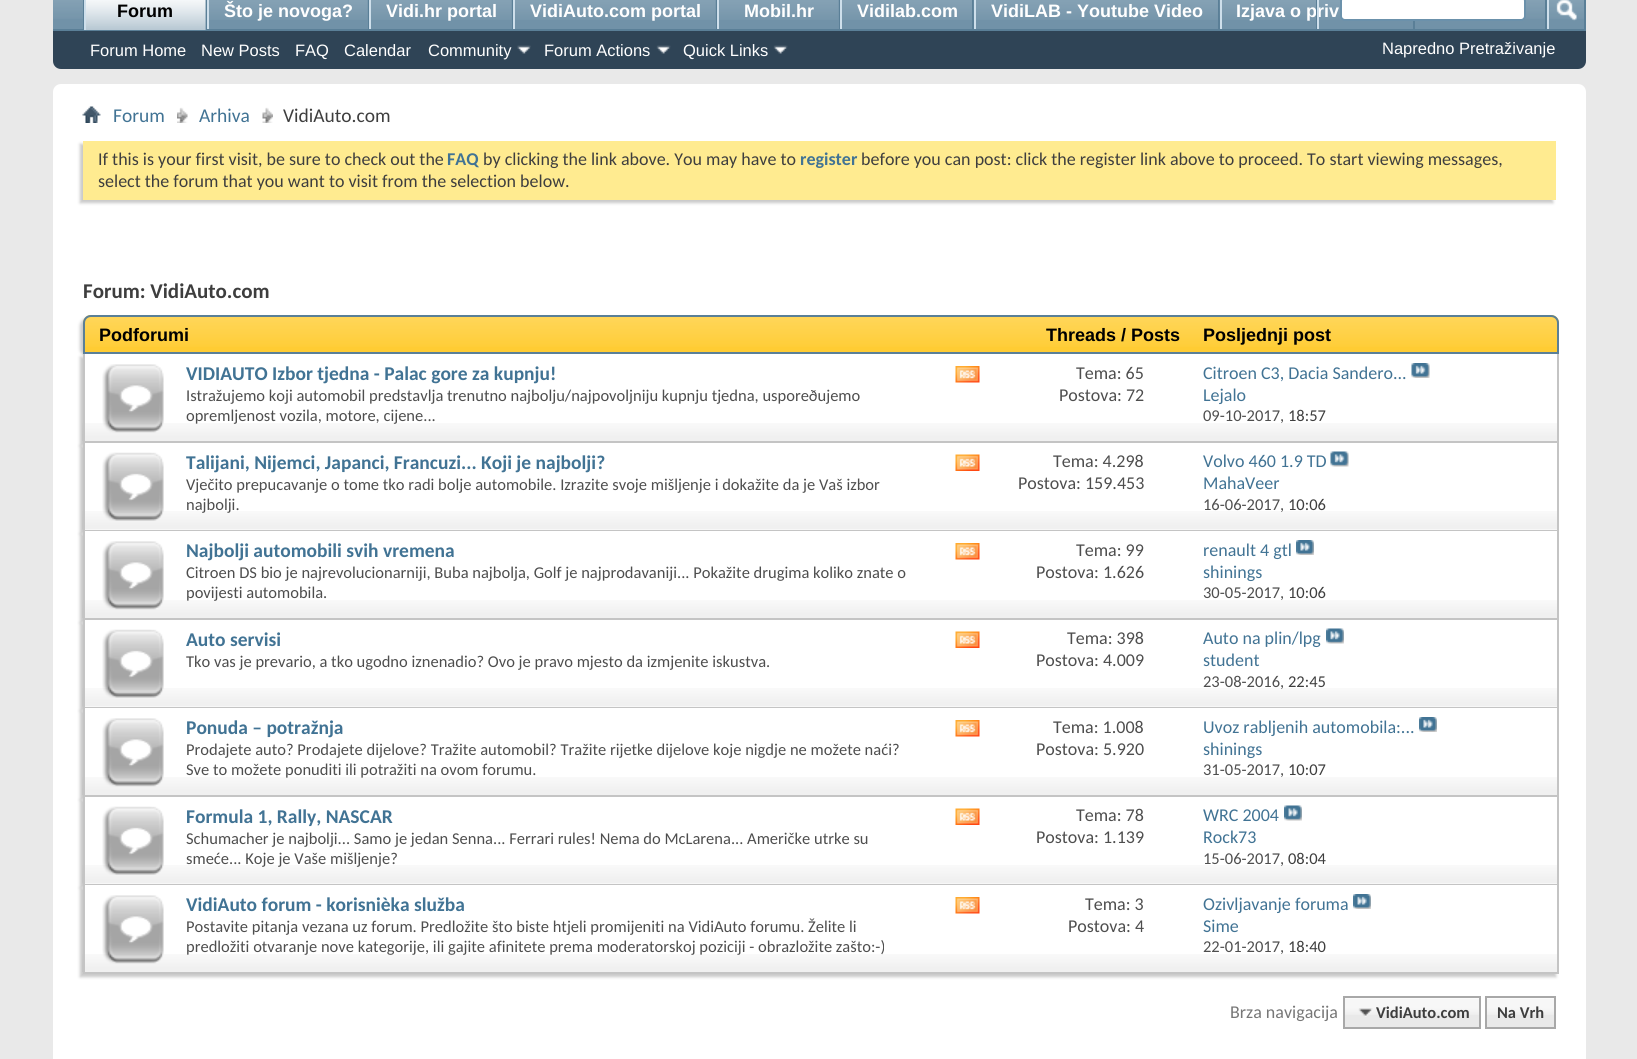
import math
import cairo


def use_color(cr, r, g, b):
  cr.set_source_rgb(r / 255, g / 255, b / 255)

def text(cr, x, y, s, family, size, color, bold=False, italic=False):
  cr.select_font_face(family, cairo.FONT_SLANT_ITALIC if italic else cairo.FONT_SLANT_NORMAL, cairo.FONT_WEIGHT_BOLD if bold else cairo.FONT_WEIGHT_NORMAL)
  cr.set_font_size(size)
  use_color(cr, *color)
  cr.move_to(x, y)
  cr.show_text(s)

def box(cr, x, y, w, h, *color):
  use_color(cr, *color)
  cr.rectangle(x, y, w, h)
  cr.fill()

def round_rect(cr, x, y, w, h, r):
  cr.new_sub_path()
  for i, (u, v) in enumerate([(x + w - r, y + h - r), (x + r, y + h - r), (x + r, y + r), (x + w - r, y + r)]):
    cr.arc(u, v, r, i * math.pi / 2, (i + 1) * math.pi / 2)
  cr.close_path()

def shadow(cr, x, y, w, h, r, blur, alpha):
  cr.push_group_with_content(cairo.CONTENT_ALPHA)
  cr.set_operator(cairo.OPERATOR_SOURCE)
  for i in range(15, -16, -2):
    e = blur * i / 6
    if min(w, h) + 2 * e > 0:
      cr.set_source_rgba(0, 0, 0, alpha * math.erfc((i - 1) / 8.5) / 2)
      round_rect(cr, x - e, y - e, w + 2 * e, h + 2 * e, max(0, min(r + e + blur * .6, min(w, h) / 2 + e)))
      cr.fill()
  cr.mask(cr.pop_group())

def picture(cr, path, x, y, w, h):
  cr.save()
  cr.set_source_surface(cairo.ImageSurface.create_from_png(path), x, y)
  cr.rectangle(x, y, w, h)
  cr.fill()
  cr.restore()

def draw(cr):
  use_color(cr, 233, 233, 233)
  cr.paint()
  use_color(cr, 47, 68, 86)
  cr.new_path()
  cr.move_to(53, -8)
  cr.line_to(1586, -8)
  cr.line_to(1586, 61)
  cr.curve_to(1586, 65.5, 1582.5, 69, 1578, 69)
  cr.line_to(61, 69)
  cr.curve_to(56.5, 69, 53, 65.5, 53, 61)
  cr.close_path()
  cr.fill()
  box(cr, 53, 0, 1531, 29, 113, 146, 168)
  picture(cr, "img_01.png", 53, 0, 1531, 19)
  box(cr, 206, 0, 1, 29, 90, 127, 151)
  box(cr, 83, 0, 1, 29, 90, 127, 151)
  box(cr, 368, 0, 1, 30, 90, 127, 151)
  box(cr, 207, 0, 2, 30, 206, 223, 235)
  box(cr, 512, 0, 1, 30, 90, 127, 151)
  box(cr, 369, 0, 2, 30, 206, 223, 235)
  box(cr, 716, 0, 1, 30, 90, 127, 151)
  box(cr, 513, 0, 2, 30, 206, 223, 235)
  box(cr, 839, 0, 1, 30, 90, 127, 151)
  box(cr, 717, 0, 2, 30, 206, 223, 235)
  box(cr, 972, 0, 2, 30, 90, 127, 151)
  box(cr, 840, 0, 2, 30, 206, 223, 235)
  box(cr, 1218, 0, 2, 30, 90, 127, 151)
  box(cr, 976, 0, 242, 19, 113, 146, 168)
  picture(cr, "img_08.png", 973, 0, 245, 20)
  box(cr, 974, 0, 2, 30, 206, 223, 235)
  box(cr, 1413, 21, 2, 9, 90, 127, 151)
  box(cr, 1222, 0, 191, 19, 113, 146, 168)
  picture(cr, "img_09.png", 1219, 0, 123, 20)
  box(cr, 1220, 0, 2, 30, 206, 223, 235)
  box(cr, 53, 29, 1533, 2, 90, 127, 151)
  box(cr, 86, 0, 120, 30, 113, 146, 168)
  picture(cr, "img_02.png", 86, 0, 120, 30)
  box(cr, 84, 0, 2, 30, 206, 223, 235)
  box(cr, 209, 0, 159, 19, 113, 146, 168)
  picture(cr, "img_03.png", 209, 0, 159, 20)
  box(cr, 371, 0, 141, 19, 113, 146, 168)
  picture(cr, "img_04.png", 371, 0, 141, 20)
  box(cr, 515, 0, 201, 19, 113, 146, 168)
  picture(cr, "img_05.png", 515, 0, 201, 20)
  box(cr, 719, 0, 120, 19, 113, 146, 168)
  picture(cr, "img_06.png", 719, 0, 120, 20)
  box(cr, 842, 0, 130, 19, 113, 146, 168)
  picture(cr, "img_07.png", 842, 0, 130, 20)
  picture(cr, "img_10.png", 517, 45, 14, 9)
  picture(cr, "img_11.png", 656, 45, 15, 9)
  picture(cr, "img_11.png", 773, 45, 15, 9)
  use_color(cr, 255, 255, 255)
  round_rect(cr, 1341, -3, 184, 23, 4)
  cr.fill_preserve()
  use_color(cr, 107, 145, 171)
  cr.stroke()
  box(cr, 1584, 0, 2, 29, 90, 127, 151)
  box(cr, 1545, 0, 2, 29, 90, 127, 151)
  box(cr, 1547, 0, 2, 29, 206, 223, 235)
  picture(cr, "img_12.png", 1556, 0, 21, 21)
  use_color(cr, 255, 255, 255)
  round_rect(cr, 53, 84, 1533, 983, 8)
  cr.fill()
  picture(cr, "img_13.png", 82, 106, 19, 17)
  picture(cr, "img_14.png", 177, 107, 11, 16)
  picture(cr, "img_15.png", 262, 107, 11, 16)
  use_color(cr, 200, 200, 200)
  shadow(cr, 80, 144, 1473, 59, 0, 1.5, 1)
  box(cr, 83, 141, 1473, 59, 255, 235, 144)
  use_color(cr, 200, 200, 200)
  shadow(cr, 80, 318, 1476, 39, 8, 1.5, 1)
  use_color(cr, 255, 204, 51)
  cr.new_path()
  cr.move_to(91, 315)
  cr.line_to(1551, 315)
  cr.curve_to(1555.5, 315, 1559, 318.5, 1559, 323)
  cr.line_to(1559, 354)
  cr.line_to(83, 354)
  cr.line_to(83, 323)
  cr.curve_to(83, 318.5, 86.5, 315, 91, 315)
  cr.close_path()
  cr.fill()
  picture(cr, "img_16.png", 83, 316, 1476, 31)
  cr.new_path()
  cr.move_to(91, 316)
  cr.line_to(1551, 316)
  cr.curve_to(1555, 316, 1558, 319, 1558, 323)
  cr.line_to(1558, 353)
  cr.line_to(84, 353)
  cr.line_to(84, 323)
  cr.curve_to(84, 319, 87, 316, 91, 316)
  cr.close_path()
  use_color(cr, 90, 127, 151)
  cr.stroke()
  use_color(cr, 200, 200, 200)
  shadow(cr, 80, 357, 1476, 89, 0, 1.5, 1)
  box(cr, 85, 354, 1472, 87, 255, 255, 255)
  picture(cr, "img_17.png", 82, 423, 1475, 18)
  box(cr, 1557, 354, 2, 89, 196, 196, 196)
  box(cr, 83, 441, 1476, 2, 196, 196, 196)
  box(cr, 83, 354, 2, 89, 196, 196, 196)
  picture(cr, "img_18.png", 102, 364, 62, 69)
  picture(cr, "img_19.png", 955, 366, 25, 17)
  picture(cr, "img_20.png", 1411, 363, 19, 15)
  use_color(cr, 200, 200, 200)
  shadow(cr, 80, 446, 1476, 88, 0, 1.5, 1)
  box(cr, 85, 443, 1472, 87, 255, 255, 255)
  picture(cr, "img_21.png", 82, 511, 1475, 19)
  box(cr, 1557, 443, 2, 88, 196, 196, 196)
  box(cr, 83, 530, 1476, 1, 196, 196, 196)
  box(cr, 83, 443, 2, 88, 196, 196, 196)
  picture(cr, "img_22.png", 102, 452, 62, 69)
  picture(cr, "img_23.png", 955, 454, 25, 17)
  picture(cr, "img_24.png", 1330, 451, 19, 16)
  use_color(cr, 200, 200, 200)
  shadow(cr, 80, 534, 1476, 89, 0, 1.5, 1)
  box(cr, 85, 531, 1472, 87, 255, 255, 255)
  picture(cr, "img_25.png", 82, 600, 1475, 18)
  box(cr, 1557, 531, 2, 89, 196, 196, 196)
  box(cr, 83, 618, 1476, 2, 196, 196, 196)
  box(cr, 83, 531, 2, 89, 196, 196, 196)
  picture(cr, "img_26.png", 102, 541, 62, 69)
  picture(cr, "img_19.png", 955, 543, 25, 17)
  picture(cr, "img_27.png", 1296, 540, 18, 15)
  use_color(cr, 200, 200, 200)
  shadow(cr, 80, 623, 1476, 88, 0, 1.5, 1)
  box(cr, 85, 620, 1472, 87, 255, 255, 255)
  picture(cr, "img_21.png", 82, 688, 1475, 19)
  box(cr, 1557, 620, 2, 88, 196, 196, 196)
  box(cr, 83, 707, 1476, 1, 196, 196, 196)
  box(cr, 83, 620, 2, 88, 196, 196, 196)
  picture(cr, "img_22.png", 102, 629, 62, 69)
  picture(cr, "img_23.png", 955, 631, 25, 17)
  picture(cr, "img_28.png", 1326, 628, 18, 16)
  use_color(cr, 200, 200, 200)
  shadow(cr, 80, 711, 1476, 89, 0, 1.5, 1)
  box(cr, 85, 708, 1472, 87, 255, 255, 255)
  picture(cr, "img_25.png", 82, 777, 1475, 18)
  box(cr, 1557, 708, 2, 89, 196, 196, 196)
  box(cr, 83, 795, 1476, 2, 196, 196, 196)
  box(cr, 83, 708, 2, 89, 196, 196, 196)
  picture(cr, "img_26.png", 102, 718, 62, 69)
  picture(cr, "img_19.png", 955, 720, 25, 17)
  picture(cr, "img_27.png", 1419, 717, 18, 15)
  use_color(cr, 200, 200, 200)
  shadow(cr, 80, 800, 1476, 88, 0, 1.5, 1)
  box(cr, 85, 797, 1472, 87, 255, 255, 255)
  picture(cr, "img_21.png", 82, 865, 1475, 19)
  box(cr, 1557, 797, 2, 88, 196, 196, 196)
  box(cr, 83, 884, 1476, 1, 196, 196, 196)
  box(cr, 83, 797, 2, 88, 196, 196, 196)
  picture(cr, "img_22.png", 102, 806, 62, 69)
  picture(cr, "img_23.png", 955, 808, 25, 17)
  picture(cr, "img_29.png", 1284, 805, 18, 16)
  use_color(cr, 200, 200, 200)
  shadow(cr, 80, 888, 1476, 89, 0, 1.5, 1)
  box(cr, 85, 885, 1472, 87, 255, 255, 255)
  picture(cr, "img_17.png", 82, 954, 1475, 18)
  box(cr, 1557, 885, 2, 89, 196, 196, 196)
  box(cr, 83, 972, 1476, 2, 196, 196, 196)
  box(cr, 83, 885, 2, 89, 196, 196, 196)
  picture(cr, "img_18.png", 102, 895, 62, 69)
  picture(cr, "img_19.png", 955, 897, 25, 17)
  picture(cr, "img_30.png", 1353, 894, 18, 15)
  box(cr, 1345, 998, 134, 29, 233, 233, 233)
  picture(cr, "img_31.png", 1345, 998, 134, 17)
  box(cr, 1487, 998, 67, 29, 233, 233, 233)
  picture(cr, "img_32.png", 1487, 998, 67, 17)
  cr.rectangle(1344, 997, 136, 31)
  use_color(cr, 168, 168, 168)
  cr.stroke()
  picture(cr, "img_33.png", 1358, 1008, 15, 9)
  cr.rectangle(1486, 997, 69, 31)
  cr.stroke()
  text(cr, 117, 17, "Forum", "Liberation Sans", 18, (0, 0, 0), bold=True)
  text(cr, 224, 17, "Što je novoga?", "Liberation Sans", 18, (255, 255, 255), bold=True)
  text(cr, 386, 17, "Vidi.hr portal", "Liberation Sans", 18, (255, 255, 255), bold=True)
  text(cr, 530, 17, "VidiAuto.com portal", "Liberation Sans", 18, (255, 255, 255), bold=True)
  text(cr, 744, 17, "Mobil.hr", "Liberation Sans", 18, (255, 255, 255), bold=True)
  text(cr, 857, 17, "Vidilab.com", "Liberation Sans", 18, (255, 255, 255), bold=True)
  text(cr, 991, 17, "VidiLAB - Youtube Video", "Liberation Sans", 18, (255, 255, 255), bold=True)
  text(cr, 1236, 17, "Izjava o priv", "Liberation Sans", 18, (255, 255, 255), bold=True)
  text(cr, 90, 56, "Forum Home", "Liberation Sans", 16.5, (255, 255, 255))
  text(cr, 201, 56, "New Posts", "Liberation Sans", 16.5, (255, 255, 255))
  text(cr, 295, 56, "FAQ", "Liberation Sans", 16.5, (255, 255, 255))
  text(cr, 344, 56, "Calendar", "Liberation Sans", 16.5, (255, 255, 255))
  text(cr, 428, 56, "Community", "Liberation Sans", 16.5, (255, 255, 255))
  text(cr, 544, 56, "Forum Actions", "Liberation Sans", 16.5, (255, 255, 255))
  text(cr, 683, 56, "Quick Links", "Liberation Sans", 16.5, (255, 255, 255))
  box(cr, 1316, 0, 1, 29, 90, 127, 151)
  box(cr, 1317, 0, 2, 29, 206, 223, 235)
  text(cr, 1382, 54, "Napredno Pretraživanje", "Liberation Sans", 16.5, (255, 255, 255))
  text(cr, 113, 122, "Forum", "Carlito", 19.5, (65, 115, 148))
  text(cr, 199, 122, "Arhiva", "Carlito", 19.5, (65, 115, 148))
  text(cr, 283, 122, "VidiAuto.com", "Carlito", 19.5, (62, 62, 62))
  text(cr, 98, 165, "If this is your first visit, be sure to check out the", "Carlito", 18, (62, 62, 62))
  text(cr, 447, 165, "FAQ", "Carlito", 18, (65, 115, 148), bold=True)
  text(cr, 483, 165, "by clicking the link above. You may have to", "Carlito", 18, (62, 62, 62))
  text(cr, 800, 165, "register", "Carlito", 18, (65, 115, 148), bold=True)
  text(cr, 861, 165, "before you can post: click the register link above to proceed. To start viewing messages,", "Carlito", 18, (62, 62, 62))
  text(cr, 98, 187, "select the forum that you want to visit from the selection below.", "Carlito", 18, (62, 62, 62))
  text(cr, 83, 298, "Forum: VidiAuto.com", "Carlito", 21, (62, 62, 62), bold=True)
  text(cr, 99, 341, "Podforumi", "Liberation Sans", 18, (0, 0, 0), bold=True)
  text(cr, 1046, 341, "Threads / Posts", "Liberation Sans", 18, (0, 0, 0), bold=True)
  text(cr, 1203, 341, "Posljednji post", "Liberation Sans", 18, (0, 0, 0), bold=True)
  text(cr, 186, 380, "VIDIAUTO Izbor tjedna - Palac gore za kupnju!", "Carlito", 19.5, (65, 115, 148), bold=True)
  text(cr, 186, 401, "Istražujemo koji automobil predstavlja trenutno najbolju/najpovoljniju kupnju tjedna, usporeðujemo", "Carlito", 16.5, (78, 78, 78))
  text(cr, 186, 421, "opremljenost vozila, motore, cijene...", "Carlito", 16.5, (78, 78, 78))
  text(cr, 1076, 379, "Tema: 65", "Carlito", 18, (78, 78, 78))
  text(cr, 1059, 401, "Postova: 72", "Carlito", 18, (78, 78, 78))
  text(cr, 1203, 379, "Citroen C3, Dacia Sandero...", "Carlito", 18, (65, 115, 148))
  text(cr, 1203, 401, "Lejalo", "Carlito", 18, (65, 115, 148))
  text(cr, 1203, 421, "09-10-2017,", "Carlito", 16.5, (78, 78, 78))
  text(cr, 1288, 421, "18:57", "Carlito", 16.5, (62, 62, 62))
  text(cr, 186, 469, "Talijani, Nijemci, Japanci, Francuzi... Koji je najbolji?", "Carlito", 19.5, (65, 115, 148), bold=True)
  text(cr, 186, 490, "Vječito prepucavanje o tome tko radi bolje automobile. Izrazite svoje mišljenje i dokažite da je Vaš izbor", "Carlito", 16.5, (78, 78, 78))
  text(cr, 186, 510, "najbolji.", "Carlito", 16.5, (78, 78, 78))
  text(cr, 1053, 467, "Tema: 4.298", "Carlito", 18, (78, 78, 78))
  text(cr, 1018, 489, "Postova: 159.453", "Carlito", 18, (78, 78, 78))
  text(cr, 1203, 467, "Volvo 460 1.9 TD", "Carlito", 18, (65, 115, 148))
  text(cr, 1203, 489, "MahaVeer", "Carlito", 18, (65, 115, 148))
  text(cr, 1203, 510, "16-06-2017,", "Carlito", 16.5, (78, 78, 78))
  text(cr, 1288, 510, "10:06", "Carlito", 16.5, (62, 62, 62))
  text(cr, 186, 557, "Najbolji automobili svih vremena", "Carlito", 19.5, (65, 115, 148), bold=True)
  text(cr, 186, 578, "Citroen DS bio je najrevolucionarniji, Buba najbolja, Golf je najprodavaniji... Pokažite drugima koliko znate o", "Carlito", 16.5, (78, 78, 78))
  text(cr, 186, 598, "povijesti automobila.", "Carlito", 16.5, (78, 78, 78))
  text(cr, 1076, 556, "Tema: 99", "Carlito", 18, (78, 78, 78))
  text(cr, 1036, 578, "Postova: 1.626", "Carlito", 18, (78, 78, 78))
  text(cr, 1203, 556, "renault 4 gtl", "Carlito", 18, (65, 115, 148))
  text(cr, 1203, 578, "shinings", "Carlito", 18, (65, 115, 148))
  text(cr, 1203, 598, "30-05-2017,", "Carlito", 16.5, (78, 78, 78))
  text(cr, 1288, 598, "10:06", "Carlito", 16.5, (62, 62, 62))
  text(cr, 186, 646, "Auto servisi", "Carlito", 19.5, (65, 115, 148), bold=True)
  text(cr, 186, 667, "Tko vas je prevario, a tko ugodno iznenadio? Ovo je pravo mjesto da izmjenite iskustva.", "Carlito", 16.5, (78, 78, 78))
  text(cr, 1067, 644, "Tema: 398", "Carlito", 18, (78, 78, 78))
  text(cr, 1036, 666, "Postova: 4.009", "Carlito", 18, (78, 78, 78))
  text(cr, 1203, 644, "Auto na plin/lpg", "Carlito", 18, (65, 115, 148))
  text(cr, 1203, 666, "student", "Carlito", 18, (65, 115, 148))
  text(cr, 1203, 687, "23-08-2016,", "Carlito", 16.5, (78, 78, 78))
  text(cr, 1288, 687, "22:45", "Carlito", 16.5, (62, 62, 62))
  text(cr, 186, 734, "Ponuda – potražnja", "Carlito", 19.5, (65, 115, 148), bold=True)
  text(cr, 186, 755, "Prodajete auto? Prodajete dijelove? Tražite automobil? Tražite rijetke dijelove koje nigdje ne možete naći?", "Carlito", 16.5, (78, 78, 78))
  text(cr, 186, 775, "Sve to možete ponuditi ili potražiti na ovom forumu.", "Carlito", 16.5, (78, 78, 78))
  text(cr, 1053, 733, "Tema: 1.008", "Carlito", 18, (78, 78, 78))
  text(cr, 1036, 755, "Postova: 5.920", "Carlito", 18, (78, 78, 78))
  text(cr, 1203, 733, "Uvoz rabljenih automobila:...", "Carlito", 18, (65, 115, 148))
  text(cr, 1203, 755, "shinings", "Carlito", 18, (65, 115, 148))
  text(cr, 1203, 775, "31-05-2017,", "Carlito", 16.5, (78, 78, 78))
  text(cr, 1288, 775, "10:07", "Carlito", 16.5, (62, 62, 62))
  text(cr, 186, 823, "Formula 1, Rally, NASCAR", "Carlito", 19.5, (65, 115, 148), bold=True)
  text(cr, 186, 844, "Schumacher je najbolji... Samo je jedan Senna... Ferrari rules! Nema do McLarena... Američke utrke su", "Carlito", 16.5, (78, 78, 78))
  text(cr, 186, 864, "smeće... Koje je Vaše mišljenje?", "Carlito", 16.5, (78, 78, 78))
  text(cr, 1076, 821, "Tema: 78", "Carlito", 18, (78, 78, 78))
  text(cr, 1036, 843, "Postova: 1.139", "Carlito", 18, (78, 78, 78))
  text(cr, 1203, 821, "WRC 2004", "Carlito", 18, (65, 115, 148))
  text(cr, 1203, 843, "Rock73", "Carlito", 18, (65, 115, 148))
  text(cr, 1203, 864, "15-06-2017,", "Carlito", 16.5, (78, 78, 78))
  text(cr, 1288, 864, "08:04", "Carlito", 16.5, (62, 62, 62))
  text(cr, 186, 911, "VidiAuto forum - korisnièka služba", "Carlito", 19.5, (65, 115, 148), bold=True)
  text(cr, 186, 932, "Postavite pitanja vezana uz forum. Predložite što biste htjeli promijeniti na VidiAuto forumu. Želite li", "Carlito", 16.5, (78, 78, 78))
  text(cr, 186, 952, "predložiti otvaranje nove kategorije, ili gajite afinitete prema moderatorskoj poziciji - obrazložite zašto:-)", "Carlito", 16.5, (78, 78, 78))
  text(cr, 1085, 910, "Tema: 3", "Carlito", 18, (78, 78, 78))
  text(cr, 1068, 932, "Postova: 4", "Carlito", 18, (78, 78, 78))
  text(cr, 1203, 910, "Ozivljavanje foruma", "Carlito", 18, (65, 115, 148))
  text(cr, 1203, 932, "Sime", "Carlito", 18, (65, 115, 148))
  text(cr, 1203, 952, "22-01-2017,", "Carlito", 16.5, (78, 78, 78))
  text(cr, 1288, 952, "18:40", "Carlito", 16.5, (62, 62, 62))
  text(cr, 1230, 1018, "Brza navigacija", "Carlito", 18, (119, 119, 119))
  text(cr, 1376, 1018, "VidiAuto.com", "Carlito", 16.5, (62, 62, 62), bold=True)
  text(cr, 1497, 1018, "Na Vrh", "Carlito", 16.5, (62, 62, 62), bold=True)


surface = cairo.ImageSurface(cairo.FORMAT_RGB24, 1637, 1059)
cr = cairo.Context(surface)
options = cairo.FontOptions()
options.set_hint_metrics(cairo.HINT_METRICS_OFF)
options.set_hint_style(cairo.HINT_STYLE_NONE)
cr.set_font_options(options)
cr.set_miter_limit(4)
draw(cr)
surface.write_to_png("out.png")
